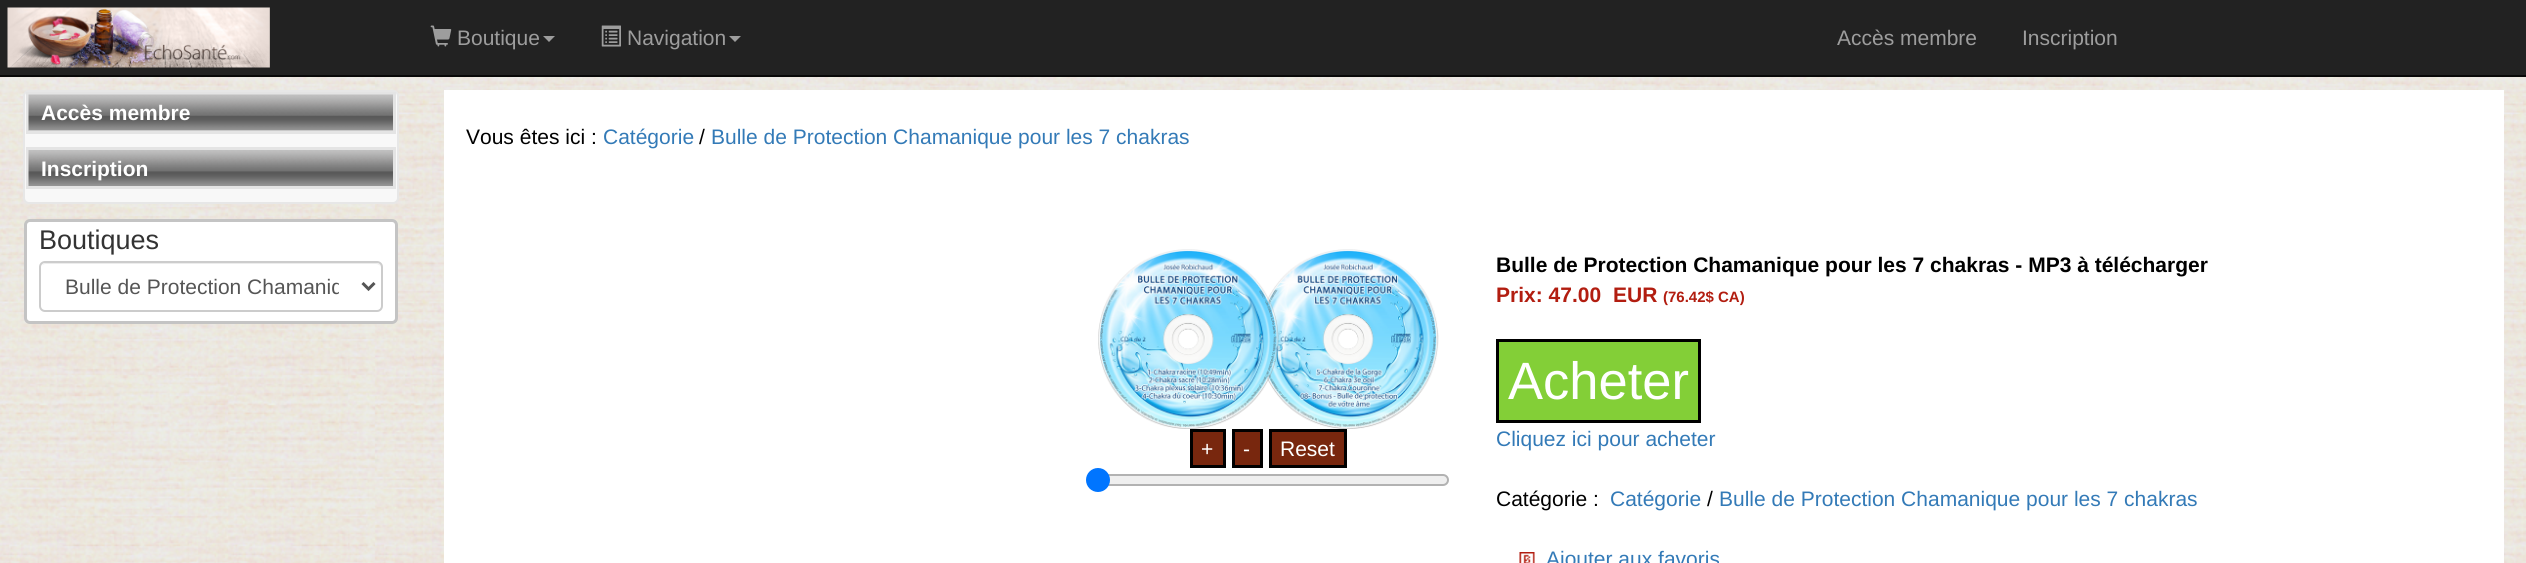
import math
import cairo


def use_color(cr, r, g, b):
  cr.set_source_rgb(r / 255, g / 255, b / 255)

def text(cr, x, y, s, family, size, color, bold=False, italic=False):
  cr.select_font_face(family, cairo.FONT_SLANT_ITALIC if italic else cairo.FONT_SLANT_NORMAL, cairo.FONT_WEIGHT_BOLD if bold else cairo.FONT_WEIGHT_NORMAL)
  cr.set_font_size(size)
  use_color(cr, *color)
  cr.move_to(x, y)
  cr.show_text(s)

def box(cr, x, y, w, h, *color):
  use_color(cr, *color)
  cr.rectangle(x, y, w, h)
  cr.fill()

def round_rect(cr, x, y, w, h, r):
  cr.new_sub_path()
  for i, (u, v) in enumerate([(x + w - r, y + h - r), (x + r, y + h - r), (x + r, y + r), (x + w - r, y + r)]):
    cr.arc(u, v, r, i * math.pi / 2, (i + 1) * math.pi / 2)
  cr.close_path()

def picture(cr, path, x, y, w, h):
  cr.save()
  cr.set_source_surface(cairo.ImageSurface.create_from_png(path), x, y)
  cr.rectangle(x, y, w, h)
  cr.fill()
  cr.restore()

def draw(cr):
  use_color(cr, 255, 255, 255)
  cr.paint()
  picture(cr, "img_01.png", 0, 77, 2526, 486)
  box(cr, 0, 0, 2526, 75, 34, 34, 34)
  box(cr, 0, 75, 2526, 2, 8, 8, 8)
  picture(cr, "img_02.png", 7, 7, 263, 61)
  picture(cr, "img_03.png", 430, 25, 22, 22)
  use_color(cr, 157, 157, 157)
  cr.new_path()
  cr.move_to(543, 36)
  cr.line_to(555, 36)
  cr.line_to(549, 42)
  cr.close_path()
  cr.fill()
  picture(cr, "img_04.png", 601, 25, 20, 22)
  cr.new_path()
  cr.move_to(729, 36)
  cr.line_to(741, 36)
  cr.line_to(735, 42)
  cr.close_path()
  cr.fill()
  use_color(cr, 248, 248, 248)
  round_rect(cr, 24, 91, 374, 112, 5)
  cr.fill_preserve()
  use_color(cr, 231, 231, 231)
  cr.stroke()
  box(cr, 29, 130, 364, 1, 255, 255, 255)
  cr.rectangle(27.5, 93.5, 367, 39)
  use_color(cr, 228, 228, 228)
  cr.set_line_width(3)
  cr.stroke()
  picture(cr, "img_05.png", 28, 94, 365, 37)
  cr.rectangle(27.5, 148.5, 367, 39)
  cr.stroke()
  picture(cr, "img_06.png", 28, 150, 365, 36)
  use_color(cr, 255, 255, 255)
  round_rect(cr, 25.5, 220.5, 371, 102, 4.5)
  cr.fill_preserve()
  use_color(cr, 196, 196, 196)
  cr.stroke()
  use_color(cr, 236, 236, 236)
  cr.new_path()
  cr.move_to(45, 264)
  cr.line_to(376, 264)
  cr.curve_to(379, 264, 381, 266, 381, 268)
  cr.curve_to(381, 265, 379, 263, 376, 263)
  cr.line_to(46, 263)
  cr.curve_to(44, 263, 43, 264, 42, 265)
  cr.close_path()
  cr.fill()
  round_rect(cr, 40, 262, 342, 49, 5)
  use_color(cr, 204, 204, 204)
  cr.set_line_width(2)
  cr.stroke()
  cr.new_path()
  cr.move_to(362.5, 283)
  cr.line_to(368.5, 289)
  cr.line_to(374.5, 283)
  use_color(cr, 85, 85, 85)
  cr.set_line_width(3)
  cr.stroke()
  box(cr, 444, 90, 2060, 473, 255, 255, 255)
  picture(cr, "img_07.png", 1098, 249, 341, 180)
  use_color(cr, 120, 39, 14)
  cr.rectangle(1191.5, 430.5, 33, 36)
  cr.fill_preserve()
  use_color(cr, 0, 0, 0)
  cr.stroke()
  use_color(cr, 120, 39, 14)
  cr.rectangle(1233.5, 430.5, 28, 36)
  cr.fill_preserve()
  use_color(cr, 0, 0, 0)
  cr.stroke()
  use_color(cr, 120, 39, 14)
  cr.rectangle(1270.5, 430.5, 75, 36)
  cr.fill_preserve()
  use_color(cr, 0, 0, 0)
  cr.stroke()
  use_color(cr, 239, 239, 239)
  round_rect(cr, 1089, 475, 359, 10, 5)
  cr.fill_preserve()
  use_color(cr, 178, 178, 178)
  cr.set_line_width(2)
  cr.stroke()
  use_color(cr, 0, 117, 255)
  cr.arc(1098, 480, 12, 0, 2 * math.pi)
  cr.fill()
  use_color(cr, 131, 207, 55)
  cr.rectangle(1497.5, 340.5, 202, 81)
  cr.fill_preserve()
  use_color(cr, 0, 0, 0)
  cr.set_line_width(3)
  cr.stroke()
  picture(cr, "img_08.png", 1519, 552, 16, 11)
  text(cr, 457, 45, "Boutique", "Liberation Sans", 21, (157, 157, 157))
  text(cr, 627, 45, "Navigation", "Liberation Sans", 21, (157, 157, 157))
  text(cr, 1837, 45, "Accès membre", "Liberation Sans", 21, (157, 157, 157))
  text(cr, 2022, 45, "Inscription", "Liberation Sans", 21, (157, 157, 157))
  text(cr, 41, 120, "Accès membre", "Liberation Sans", 21, (255, 255, 255), bold=True)
  text(cr, 41, 176, "Inscription", "Liberation Sans", 21, (255, 255, 255), bold=True)
  text(cr, 39, 249, "Boutiques", "Liberation Sans", 27, (51, 51, 51))
  cr.save()
  cr.rectangle(65, 273, 274, 27)
  cr.clip()
  text(cr, 65, 294, "Bulle de Protection Chamaniq", "Liberation Sans", 21, (85, 85, 85))
  cr.restore()
  text(cr, 466, 144, "Vous êtes ici :", "Liberation Sans", 21, (0, 0, 0))
  text(cr, 603, 144, "Catégorie", "Liberation Sans", 21, (51, 122, 183))
  text(cr, 699, 144, "/", "Liberation Sans", 21, (0, 0, 0))
  text(cr, 711, 144, "Bulle de Protection Chamanique pour les 7 chakras", "Liberation Sans", 21, (51, 122, 183))
  text(cr, 1201, 456, "+", "Liberation Sans", 21, (255, 255, 255))
  text(cr, 1243, 456, "-", "Liberation Sans", 21, (255, 255, 255))
  text(cr, 1280, 456, "Reset", "Liberation Sans", 21, (255, 255, 255))
  text(cr, 1496, 272, "Bulle de Protection Chamanique pour les 7 chakras - MP3 à télécharger", "Liberation Sans", 21, (0, 0, 0), bold=True)
  text(cr, 1496, 302, "Prix: 47.00", "Liberation Sans", 21, (178, 29, 16), bold=True)
  text(cr, 1613, 302, "EUR", "Liberation Sans", 21, (178, 29, 16), bold=True)
  text(cr, 1663, 302, "(76.42$ CA)", "Liberation Sans", 15, (178, 29, 16), bold=True)
  text(cr, 1508, 399, "Acheter", "Liberation Sans", 52.5, (255, 255, 255))
  text(cr, 1496, 446, "Cliquez ici pour acheter", "Liberation Sans", 21, (51, 122, 183))
  text(cr, 1496, 506, "Catégorie :", "Liberation Sans", 21, (0, 0, 0))
  text(cr, 1610, 506, "Catégorie", "Liberation Sans", 21, (51, 122, 183))
  text(cr, 1707, 506, "/", "Liberation Sans", 21, (0, 0, 0))
  text(cr, 1719, 506, "Bulle de Protection Chamanique pour les 7 chakras", "Liberation Sans", 21, (51, 122, 183))
  text(cr, 1546, 566, "Ajouter aux favoris", "Liberation Sans", 21, (51, 122, 183))


surface = cairo.ImageSurface(cairo.FORMAT_RGB24, 2526, 563)
cr = cairo.Context(surface)
options = cairo.FontOptions()
options.set_hint_metrics(cairo.HINT_METRICS_OFF)
options.set_hint_style(cairo.HINT_STYLE_NONE)
cr.set_font_options(options)
cr.set_miter_limit(4)
draw(cr)
surface.write_to_png("out.png")
